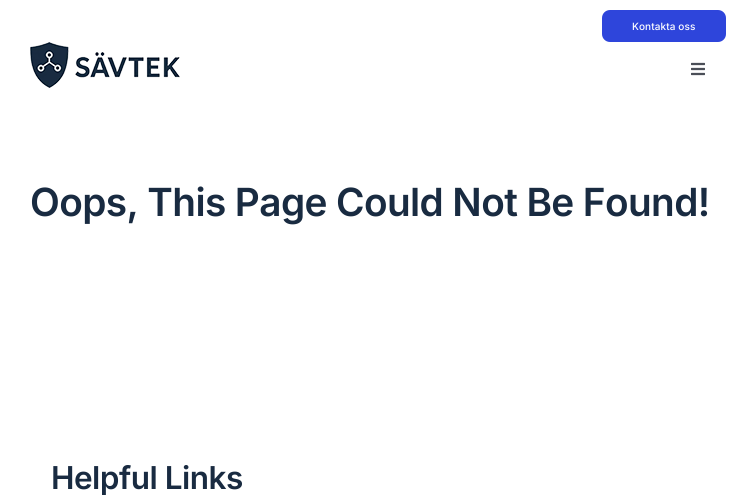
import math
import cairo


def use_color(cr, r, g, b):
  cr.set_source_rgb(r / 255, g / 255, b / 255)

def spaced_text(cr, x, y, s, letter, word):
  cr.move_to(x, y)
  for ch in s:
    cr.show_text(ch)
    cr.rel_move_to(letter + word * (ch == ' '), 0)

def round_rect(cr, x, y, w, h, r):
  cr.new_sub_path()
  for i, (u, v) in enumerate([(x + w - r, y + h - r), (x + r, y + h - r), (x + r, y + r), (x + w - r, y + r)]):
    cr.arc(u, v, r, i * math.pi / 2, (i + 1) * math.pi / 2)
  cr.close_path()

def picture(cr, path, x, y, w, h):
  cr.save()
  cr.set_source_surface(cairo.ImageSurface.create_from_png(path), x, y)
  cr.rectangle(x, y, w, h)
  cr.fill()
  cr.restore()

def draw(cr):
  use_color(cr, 255, 255, 255)
  cr.paint()
  use_color(cr, 46, 69, 219)
  round_rect(cr, 602, 10, 124, 32, 8)
  cr.fill()
  picture(cr, "img_01.png", 30, 42, 150, 46)
  picture(cr, "img_02.png", 691, 62, 14, 14)
  cr.select_font_face("Inter Medium")
  cr.set_font_size(10)
  use_color(cr, 255, 255, 255)
  spaced_text(cr, 632, 30, "Kontakta oss", 0.1, 0)
  cr.select_font_face("Inter SemiBold")
  cr.set_font_size(38.75)
  use_color(cr, 25, 43, 65)
  spaced_text(cr, 30, 216, "Oops, This Page Could Not Be Found!", -0.6, 0)
  cr.set_font_size(31.5)
  spaced_text(cr, 51, 489, "Helpful Links", -0.5, 0)


surface = cairo.ImageSurface(cairo.FORMAT_RGB24, 756, 495)
cr = cairo.Context(surface)
options = cairo.FontOptions()
options.set_hint_metrics(cairo.HINT_METRICS_OFF)
options.set_hint_style(cairo.HINT_STYLE_NONE)
cr.set_font_options(options)
cr.set_miter_limit(4)
draw(cr)
surface.write_to_png("out.png")
